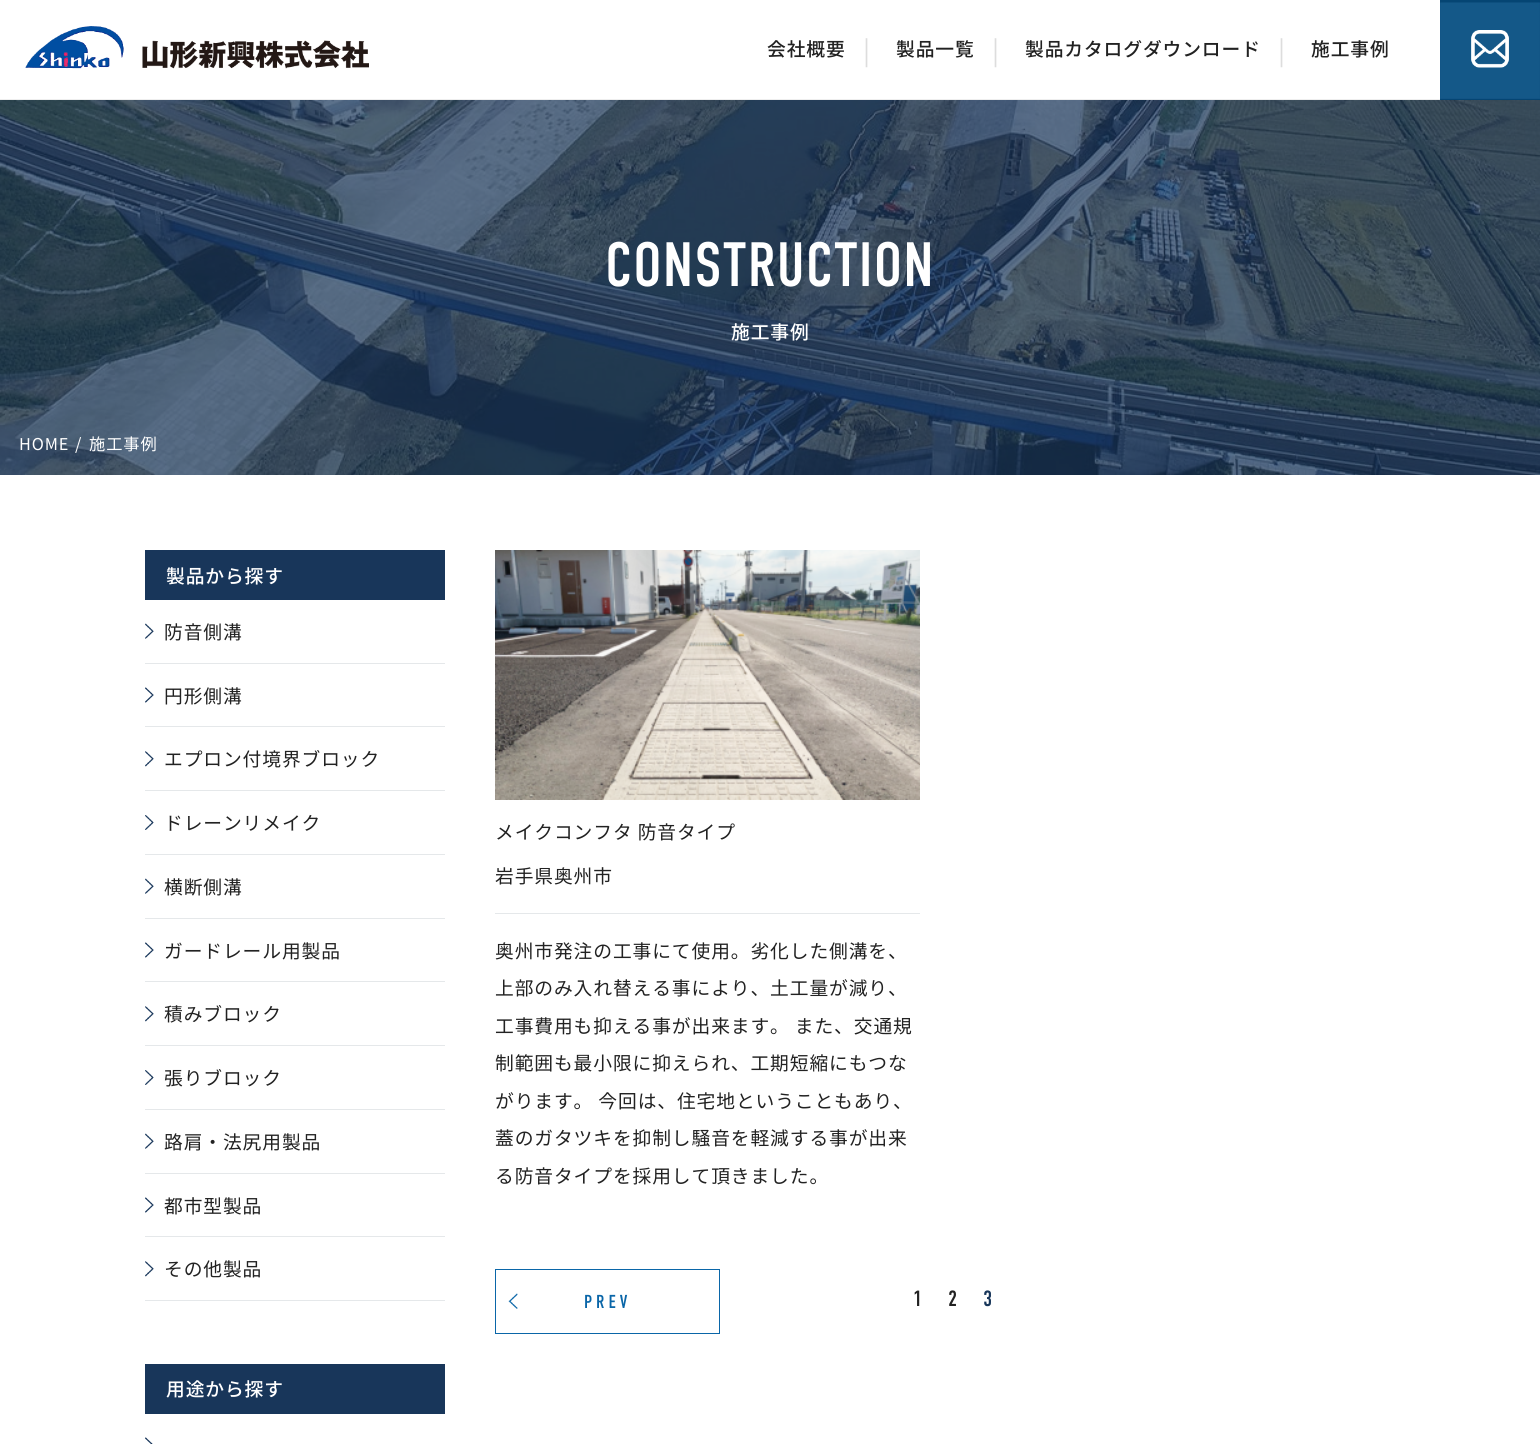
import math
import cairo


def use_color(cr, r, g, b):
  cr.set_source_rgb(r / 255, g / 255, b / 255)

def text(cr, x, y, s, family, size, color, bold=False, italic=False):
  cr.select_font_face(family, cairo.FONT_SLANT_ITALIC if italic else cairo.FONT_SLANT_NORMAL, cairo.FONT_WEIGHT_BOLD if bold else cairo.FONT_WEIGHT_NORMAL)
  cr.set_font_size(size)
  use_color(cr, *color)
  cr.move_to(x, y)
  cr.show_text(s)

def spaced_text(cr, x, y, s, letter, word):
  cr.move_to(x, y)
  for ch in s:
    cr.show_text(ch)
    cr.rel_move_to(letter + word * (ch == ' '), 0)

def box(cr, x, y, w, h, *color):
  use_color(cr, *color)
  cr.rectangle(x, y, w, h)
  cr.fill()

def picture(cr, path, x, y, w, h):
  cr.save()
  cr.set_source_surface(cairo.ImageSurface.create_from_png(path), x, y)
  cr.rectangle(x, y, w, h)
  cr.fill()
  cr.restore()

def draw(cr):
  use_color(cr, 255, 255, 255)
  cr.paint()
  box(cr, 0, 99, 1440, 1, 238, 238, 238)
  picture(cr, "img_01.png", 25, 26, 344, 43)
  box(cr, 1440, 0, 100, 100, 5, 69, 115)
  picture(cr, "img_02.png", 1440, 2, 100, 97)
  picture(cr, "img_03.png", 0, 100, 1540, 375)
  box(cr, 145, 550, 300, 50, 24, 54, 90)
  box(cr, 145, 663, 300, 1, 229, 232, 234)
  picture(cr, "img_04.png", 145, 623, 9, 16)
  box(cr, 145, 726, 300, 1, 229, 232, 234)
  picture(cr, "img_05.png", 145, 687, 9, 16)
  box(cr, 145, 790, 300, 1, 229, 232, 234)
  picture(cr, "img_06.png", 145, 751, 9, 16)
  box(cr, 145, 854, 300, 1, 229, 232, 234)
  picture(cr, "img_07.png", 145, 815, 9, 15)
  box(cr, 145, 918, 300, 1, 229, 232, 234)
  picture(cr, "img_04.png", 145, 878, 9, 16)
  box(cr, 145, 981, 300, 1, 229, 232, 234)
  picture(cr, "img_05.png", 145, 942, 9, 16)
  box(cr, 145, 1045, 300, 1, 229, 232, 234)
  picture(cr, "img_06.png", 145, 1006, 9, 16)
  box(cr, 145, 1109, 300, 1, 229, 232, 234)
  picture(cr, "img_07.png", 145, 1070, 9, 15)
  box(cr, 145, 1173, 300, 1, 229, 232, 234)
  picture(cr, "img_04.png", 145, 1133, 9, 16)
  box(cr, 145, 1236, 300, 1, 229, 232, 234)
  picture(cr, "img_05.png", 145, 1197, 9, 16)
  box(cr, 145, 1300, 300, 1, 229, 232, 234)
  picture(cr, "img_06.png", 145, 1261, 9, 16)
  box(cr, 145, 1364, 300, 50, 24, 54, 90)
  picture(cr, "img_08.png", 145, 1437, 8, 7)
  picture(cr, "img_09.png", 495, 550, 425, 250)
  box(cr, 495, 913, 425, 1, 229, 232, 234)
  picture(cr, "img_10.png", 508, 1293, 10, 16)
  cr.rectangle(495.5, 1269.5, 224, 64)
  use_color(cr, 10, 102, 168)
  cr.set_line_width(1)
  cr.stroke()
  cr.select_font_face("Noto Sans JP Medium")
  cr.set_font_size(18.75)
  use_color(cr, 34, 34, 34)
  spaced_text(cr, 767, 56, "会社概要", 0.9, 0)
  cr.select_font_face("Noto Sans JP")
  cr.set_font_size(26)
  use_color(cr, 221, 221, 221)
  spaced_text(cr, 863, 60, "|", 0.9, 0)
  cr.select_font_face("Noto Sans JP Medium")
  cr.set_font_size(18.75)
  use_color(cr, 34, 34, 34)
  spaced_text(cr, 896, 56, "製品一覧", 0.9, 0)
  cr.select_font_face("Noto Sans JP")
  cr.set_font_size(26)
  use_color(cr, 221, 221, 221)
  spaced_text(cr, 992, 60, "|", 0.9, 0)
  cr.select_font_face("Noto Sans JP Medium")
  cr.set_font_size(18.75)
  use_color(cr, 34, 34, 34)
  spaced_text(cr, 1025, 56, "製品カタログダウンロード", 0.9, 0)
  cr.select_font_face("Noto Sans JP")
  cr.set_font_size(26)
  use_color(cr, 221, 221, 221)
  spaced_text(cr, 1278, 60, "|", 0.9, 0)
  cr.select_font_face("Noto Sans JP Medium")
  cr.set_font_size(18.75)
  use_color(cr, 34, 34, 34)
  spaced_text(cr, 1311, 56, "施工事例", 0.9, 0)
  cr.select_font_face("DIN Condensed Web")
  cr.set_font_size(62.5)
  use_color(cr, 255, 255, 255)
  spaced_text(cr, 605, 286, "CONSTRUCTION", 0.9, 0)
  cr.select_font_face("Noto Sans JP Medium")
  cr.set_font_size(18.75)
  spaced_text(cr, 731, 339, "施工事例", 0.9, 0)
  cr.select_font_face("Noto Sans JP")
  cr.set_font_size(16.25)
  spaced_text(cr, 19, 450, "HOME", 0.9, 0)
  spaced_text(cr, 75, 450, "/", 0.9, 0)
  spaced_text(cr, 89, 450, "施工事例", 0.9, 0)
  cr.select_font_face("Noto Sans JP Medium")
  cr.set_font_size(18.75)
  spaced_text(cr, 166, 583, "製品から探す", 0.9, 0)
  cr.select_font_face("Noto Sans JP")
  use_color(cr, 34, 34, 34)
  spaced_text(cr, 164, 639, "防音側溝", 0.9, 0)
  spaced_text(cr, 164, 703, "円形側溝", 0.9, 0)
  spaced_text(cr, 164, 766, "エプロン付境界ブロック", 0.9, 0)
  spaced_text(cr, 164, 830, "ドレーンリメイク", 0.9, 0)
  spaced_text(cr, 164, 894, "横断側溝", 0.9, 0)
  spaced_text(cr, 164, 958, "ガードレール用製品", 0.9, 0)
  spaced_text(cr, 164, 1021, "積みブロック", 0.9, 0)
  spaced_text(cr, 164, 1085, "張りブロック", 0.9, 0)
  spaced_text(cr, 164, 1149, "路肩・法尻用製品", 0.9, 0)
  spaced_text(cr, 164, 1213, "都市型製品", 0.9, 0)
  spaced_text(cr, 164, 1276, "その他製品", 0.9, 0)
  cr.select_font_face("Noto Sans JP Medium")
  use_color(cr, 255, 255, 255)
  spaced_text(cr, 166, 1396, "用途から探す", 0.9, 0)
  cr.select_font_face("Noto Sans JP")
  use_color(cr, 34, 34, 34)
  spaced_text(cr, 495, 839, "メイクコンフタ 防音タイプ", 0.9, 0)
  spaced_text(cr, 495, 883, "岩手県奥州市", 0.9, 0)
  spaced_text(cr, 495, 958, "奥州市発注の工事にて使用。劣化した側溝を、", 0.9, 0)
  spaced_text(cr, 495, 995, "上部のみ入れ替える事により、土工量が減り、", 0.9, 0)
  spaced_text(cr, 495, 1033, "工事費用も抑える事が出来ます。 また、交通規", 0.9, 0)
  spaced_text(cr, 495, 1070, "制範囲も最小限に抑えられ、工期短縮にもつな", 0.9, 0)
  spaced_text(cr, 495, 1108, "がります。 今回は、住宅地ということもあり、", 0.9, 0)
  spaced_text(cr, 495, 1145, "蓋のガタツキを抑制し騒音を軽減する事が出来", 0.9, 0)
  spaced_text(cr, 495, 1183, "る防音タイプを採用して頂きました。", 0.9, 0)
  cr.select_font_face("DIN Condensed Web")
  use_color(cr, 10, 102, 168)
  spaced_text(cr, 584, 1308, "PREV", 4, 0)
  text(cr, 913, 1306, "1", "DIN Condensed Web", 22, (34, 34, 34))
  text(cr, 948, 1306, "2", "DIN Condensed Web", 22, (34, 34, 34))
  text(cr, 983, 1306, "3", "DIN Condensed Web", 22, (24, 54, 90))


surface = cairo.ImageSurface(cairo.FORMAT_RGB24, 1540, 1444)
cr = cairo.Context(surface)
options = cairo.FontOptions()
options.set_hint_metrics(cairo.HINT_METRICS_OFF)
options.set_hint_style(cairo.HINT_STYLE_NONE)
cr.set_font_options(options)
cr.set_miter_limit(4)
draw(cr)
surface.write_to_png("out.png")
